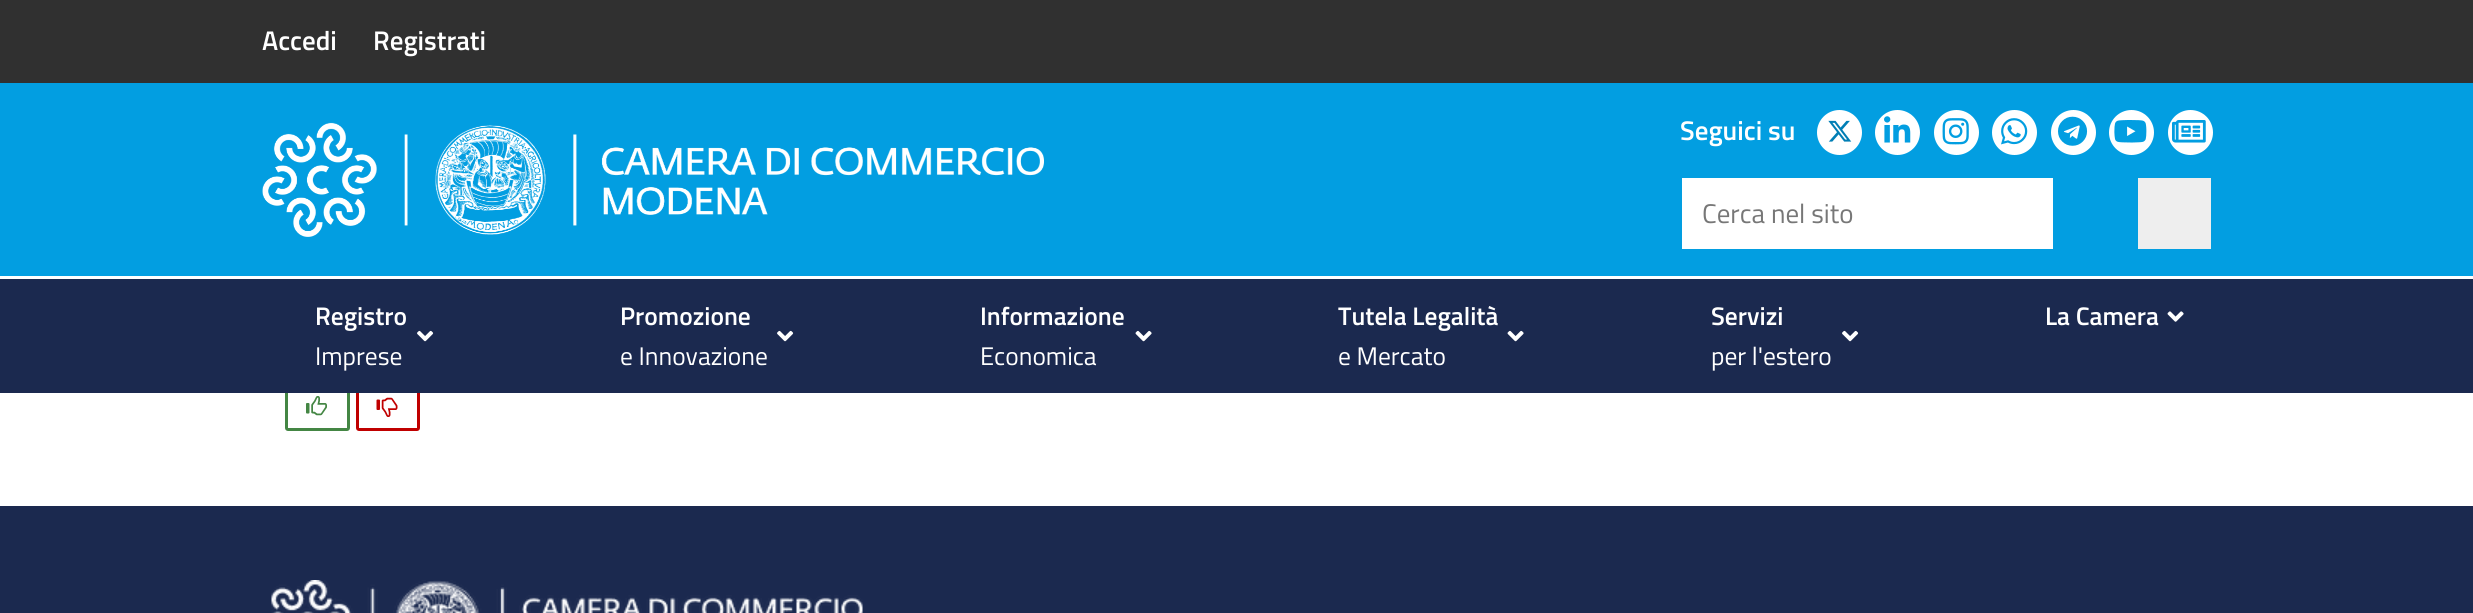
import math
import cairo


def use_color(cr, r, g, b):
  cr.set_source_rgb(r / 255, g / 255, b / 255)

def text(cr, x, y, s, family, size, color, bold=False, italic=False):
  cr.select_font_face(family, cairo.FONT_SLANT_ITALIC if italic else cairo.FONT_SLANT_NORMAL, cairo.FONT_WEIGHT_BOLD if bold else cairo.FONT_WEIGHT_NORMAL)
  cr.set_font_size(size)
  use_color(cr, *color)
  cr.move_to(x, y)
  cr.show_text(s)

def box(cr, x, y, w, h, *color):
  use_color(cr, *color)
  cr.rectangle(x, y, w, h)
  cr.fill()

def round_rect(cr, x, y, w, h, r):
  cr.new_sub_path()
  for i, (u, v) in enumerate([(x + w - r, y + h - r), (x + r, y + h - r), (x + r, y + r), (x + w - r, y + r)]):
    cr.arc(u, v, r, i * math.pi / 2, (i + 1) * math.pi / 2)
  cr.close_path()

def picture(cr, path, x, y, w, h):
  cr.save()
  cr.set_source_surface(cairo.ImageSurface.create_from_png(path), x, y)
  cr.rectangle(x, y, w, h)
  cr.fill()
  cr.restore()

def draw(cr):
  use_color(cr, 255, 255, 255)
  cr.paint()
  box(cr, 0, 83, 2473, 193, 2, 158, 225)
  box(cr, 0, 0, 2473, 83, 48, 48, 48)
  picture(cr, "img_01.png", 262, 122, 782, 115)
  use_color(cr, 255, 255, 255)
  cr.arc(1839.5, 132.5, 22.5, 0, 2 * math.pi)
  cr.fill()
  picture(cr, "img_02.png", 1828, 120, 24, 22)
  cr.arc(1897.5, 132.5, 22.5, 0, 2 * math.pi)
  cr.fill()
  picture(cr, "img_03.png", 1884, 116, 27, 27)
  cr.arc(1956.5, 132.5, 22.5, 0, 2 * math.pi)
  cr.fill()
  picture(cr, "img_04.png", 1942, 118, 27, 27)
  cr.arc(2014.5, 132.5, 22.5, 0, 2 * math.pi)
  cr.fill()
  picture(cr, "img_05.png", 2001, 118, 27, 27)
  cr.arc(2073.5, 132.5, 22.5, 0, 2 * math.pi)
  cr.fill()
  picture(cr, "img_06.png", 2058, 116, 30, 30)
  cr.arc(2131.5, 132.5, 22.5, 0, 2 * math.pi)
  cr.fill()
  picture(cr, "img_07.png", 2114, 120, 33, 23)
  cr.arc(2190.5, 132.5, 22.5, 0, 2 * math.pi)
  cr.fill()
  picture(cr, "img_08.png", 2172, 120, 34, 23)
  box(cr, 1682, 178, 371, 71, 255, 255, 255)
  box(cr, 2138, 178, 73, 71, 238, 238, 238)
  round_rect(cr, 286.5, 384.5, 62, 45, 1.5)
  use_color(cr, 68, 134, 68)
  cr.set_line_width(3)
  cr.stroke()
  round_rect(cr, 357.5, 384.5, 61, 45, 1.5)
  use_color(cr, 192, 0, 0)
  cr.stroke()
  box(cr, 0, 279, 2473, 114, 27, 41, 79)
  picture(cr, "img_09.png", 417, 330, 17, 12)
  picture(cr, "img_09.png", 777, 330, 17, 12)
  picture(cr, "img_10.png", 1135, 330, 17, 12)
  picture(cr, "img_10.png", 1507, 330, 17, 12)
  picture(cr, "img_09.png", 1842, 330, 17, 12)
  picture(cr, "img_11.png", 2167, 311, 17, 11)
  picture(cr, "img_12.png", 306, 396, 21, 20)
  picture(cr, "img_13.png", 376, 397, 22, 20)
  box(cr, 0, 506, 2473, 107, 27, 41, 79)
  picture(cr, "img_14.png", 271, 580, 592, 33)
  text(cr, 262, 50, "Accedi", "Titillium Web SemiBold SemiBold", 27, (255, 255, 255))
  text(cr, 373, 50, "Registrati", "Titillium Web SemiBold SemiBold", 27, (255, 255, 255))
  text(cr, 1680, 140, "Seguici su", "Titillium Web SemiBold SemiBold", 27, (255, 255, 255))
  text(cr, 1702, 223, "Cerca nel sito", "Titillium Web", 27, (119, 119, 119))
  text(cr, 315, 325, "Registro", "Titillium Web SemiBold SemiBold", 25.5, (255, 255, 255))
  text(cr, 315, 365, "Imprese", "Titillium Web", 25.5, (255, 255, 255))
  text(cr, 620, 325, "Promozione", "Titillium Web SemiBold SemiBold", 25.5, (255, 255, 255))
  text(cr, 620, 365, "e Innovazione", "Titillium Web", 25.5, (255, 255, 255))
  text(cr, 980, 325, "Informazione", "Titillium Web SemiBold SemiBold", 25.5, (255, 255, 255))
  text(cr, 980, 365, "Economica", "Titillium Web", 25.5, (255, 255, 255))
  text(cr, 1338, 325, "Tutela Legalità", "Titillium Web SemiBold SemiBold", 25.5, (255, 255, 255))
  text(cr, 1338, 365, "e Mercato", "Titillium Web", 25.5, (255, 255, 255))
  text(cr, 1711, 325, "Servizi", "Titillium Web SemiBold SemiBold", 25.5, (255, 255, 255))
  text(cr, 1711, 365, "per l'estero", "Titillium Web", 25.5, (255, 255, 255))
  text(cr, 2045, 325, "La Camera", "Titillium Web SemiBold SemiBold", 25.5, (255, 255, 255))


surface = cairo.ImageSurface(cairo.FORMAT_RGB24, 2473, 613)
cr = cairo.Context(surface)
options = cairo.FontOptions()
options.set_hint_metrics(cairo.HINT_METRICS_OFF)
options.set_hint_style(cairo.HINT_STYLE_NONE)
cr.set_font_options(options)
cr.set_miter_limit(4)
draw(cr)
surface.write_to_png("out.png")
